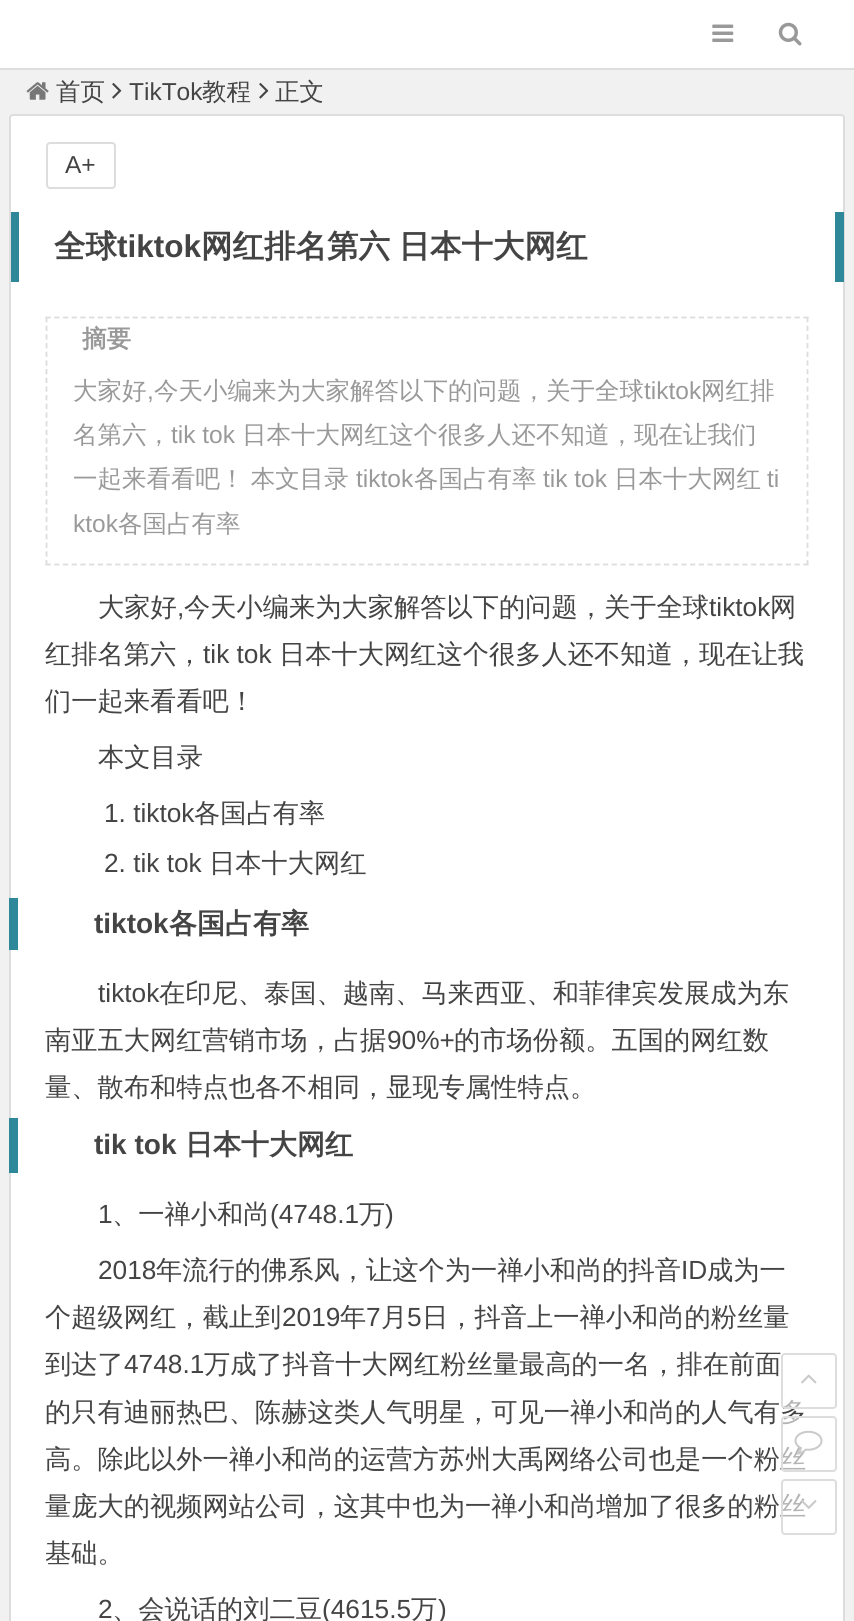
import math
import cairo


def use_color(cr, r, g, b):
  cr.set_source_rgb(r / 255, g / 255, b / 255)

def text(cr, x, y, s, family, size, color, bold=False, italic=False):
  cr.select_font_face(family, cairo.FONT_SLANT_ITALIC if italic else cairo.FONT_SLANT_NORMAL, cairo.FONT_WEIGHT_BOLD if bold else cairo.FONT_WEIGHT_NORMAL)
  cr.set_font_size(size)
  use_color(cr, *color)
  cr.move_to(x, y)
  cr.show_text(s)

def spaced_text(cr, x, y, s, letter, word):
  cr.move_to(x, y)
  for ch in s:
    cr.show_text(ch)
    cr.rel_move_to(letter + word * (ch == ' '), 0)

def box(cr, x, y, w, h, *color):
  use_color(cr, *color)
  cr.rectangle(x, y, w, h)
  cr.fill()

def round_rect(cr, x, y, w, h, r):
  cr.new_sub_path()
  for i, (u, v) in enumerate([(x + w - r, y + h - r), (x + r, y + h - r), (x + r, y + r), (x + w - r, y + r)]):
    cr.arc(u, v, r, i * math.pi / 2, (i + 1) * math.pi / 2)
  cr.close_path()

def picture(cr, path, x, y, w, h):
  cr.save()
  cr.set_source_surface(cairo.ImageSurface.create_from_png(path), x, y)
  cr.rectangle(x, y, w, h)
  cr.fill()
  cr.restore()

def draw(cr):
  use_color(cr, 241, 241, 241)
  cr.paint()
  box(cr, 0, 0, 854, 68, 255, 255, 255)
  box(cr, 0, 68, 854, 2, 221, 221, 221)
  picture(cr, "img_01.png", 712, 24, 22, 18)
  picture(cr, "img_02.png", 778, 22, 24, 24)
  picture(cr, "img_03.png", 26, 82, 23, 18)
  picture(cr, "img_04.png", 112, 83, 10, 16)
  picture(cr, "img_04.png", 259, 83, 10, 16)
  use_color(cr, 255, 255, 255)
  round_rect(cr, 10, 115, 834, 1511, 3)
  cr.fill_preserve()
  use_color(cr, 221, 221, 221)
  cr.stroke()
  round_rect(cr, 47, 143, 68, 45, 3)
  cr.stroke()
  cr.new_path()
  cr.move_to(45.5, 317.5)
  cr.line_to(808.5, 317.5)
  cr.set_line_width(1.8)
  cr.set_dash([5.25, 3.46])
  cr.stroke()
  cr.new_path()
  cr.move_to(807.5, 317)
  cr.line_to(807.5, 565)
  cr.set_dash([5.25, 3.43])
  cr.stroke()
  cr.new_path()
  cr.move_to(45.5, 564.5)
  cr.line_to(808.5, 564.5)
  cr.set_dash([5.25, 3.46])
  cr.stroke()
  cr.new_path()
  cr.move_to(46.5, 317)
  cr.line_to(46.5, 565)
  cr.set_dash([5.25, 3.43])
  cr.stroke()
  box(cr, 9, 898, 9, 52, 47, 136, 154)
  box(cr, 9, 1118, 9, 55, 47, 136, 154)
  box(cr, 835, 212, 9, 70, 47, 136, 154)
  box(cr, 11, 212, 8, 70, 47, 136, 154)
  text(cr, 56, 100, "首页", "WenQuanYi Zen Hei Medium", 24.5, (68, 68, 68))
  text(cr, 129, 100, "TikTok", "Liberation Sans", 24.5, (68, 68, 68))
  text(cr, 202, 100, "教程", "WenQuanYi Zen Hei Medium", 24.5, (68, 68, 68))
  text(cr, 275, 100, "正文", "WenQuanYi Zen Hei Medium", 24.5, (68, 68, 68))
  text(cr, 65, 173, "A+", "Liberation Sans", 24.5, (68, 68, 68))
  text(cr, 82, 347, "摘要", "WenQuanYi Zen Hei", 24.5, (153, 153, 153), bold=True)
  text(cr, 73, 399, "大家好", "WenQuanYi Zen Hei Medium", 24.5, (153, 153, 153))
  text(cr, 147, 399, ",", "Liberation Sans", 24.5, (153, 153, 153))
  text(cr, 154, 399, "今天小编来为大家解答以下的问题，关于全球", "WenQuanYi Zen Hei Medium", 24.5, (153, 153, 153))
  text(cr, 644, 399, "tiktok", "Liberation Sans", 24.5, (153, 153, 153))
  text(cr, 701, 399, "网红排", "WenQuanYi Zen Hei Medium", 24.5, (153, 153, 153))
  text(cr, 73, 443, "名第六，", "WenQuanYi Zen Hei Medium", 24.5, (153, 153, 153))
  text(cr, 171, 443, "tik tok", "Liberation Sans", 24.5, (153, 153, 153))
  text(cr, 242, 443, "日本十大网红这个很多人还不知道，现在让我们", "WenQuanYi Zen Hei Medium", 24.5, (153, 153, 153))
  spaced_text(cr, 73, 487, "一起来看看吧！ 本文目录", 0, -1)
  text(cr, 356, 487, "tiktok", "Liberation Sans", 24.5, (153, 153, 153))
  text(cr, 414, 487, "各国占有率", "WenQuanYi Zen Hei Medium", 24.5, (153, 153, 153))
  text(cr, 543, 487, "tik tok", "Liberation Sans", 24.5, (153, 153, 153))
  text(cr, 614, 487, "日本十大网红", "WenQuanYi Zen Hei Medium", 24.5, (153, 153, 153))
  text(cr, 767, 487, "ti", "Liberation Sans", 24.5, (153, 153, 153))
  text(cr, 73, 532, "ktok", "Liberation Sans", 24.5, (153, 153, 153))
  text(cr, 118, 532, "各国占有率", "WenQuanYi Zen Hei Medium", 24.5, (153, 153, 153))
  text(cr, 98, 616, "大家好", "WenQuanYi Zen Hei Medium", 26.25, (68, 68, 68))
  text(cr, 177, 616, ",", "Liberation Sans", 26.25, (68, 68, 68))
  text(cr, 184, 616, "今天小编来为大家解答以下的问题，关于全球", "WenQuanYi Zen Hei Medium", 26.25, (68, 68, 68))
  text(cr, 709, 616, "tiktok", "Liberation Sans", 26.25, (68, 68, 68))
  text(cr, 770, 616, "网", "WenQuanYi Zen Hei Medium", 26.25, (68, 68, 68))
  text(cr, 45, 663, "红排名第六，", "WenQuanYi Zen Hei Medium", 26.25, (68, 68, 68))
  text(cr, 203, 663, "tik tok", "Liberation Sans", 26.25, (68, 68, 68))
  text(cr, 279, 663, "日本十大网红这个很多人还不知道，现在让我", "WenQuanYi Zen Hei Medium", 26.25, (68, 68, 68))
  text(cr, 45, 710, "们一起来看看吧！", "WenQuanYi Zen Hei Medium", 26.25, (68, 68, 68))
  text(cr, 98, 766, "本文目录", "WenQuanYi Zen Hei Medium", 26.25, (68, 68, 68))
  text(cr, 104, 822, "1. tiktok", "Liberation Sans", 26.25, (68, 68, 68))
  text(cr, 194, 822, "各国占有率", "WenQuanYi Zen Hei Medium", 26.25, (68, 68, 68))
  text(cr, 104, 872, "2. tik tok", "Liberation Sans", 26.25, (68, 68, 68))
  text(cr, 209, 872, "日本十大网红", "WenQuanYi Zen Hei Medium", 26.25, (68, 68, 68))
  text(cr, 94, 933, "tiktok", "Liberation Sans", 28, (68, 68, 68), bold=True)
  text(cr, 169, 933, "各国占有率", "WenQuanYi Zen Hei", 28, (68, 68, 68), bold=True)
  text(cr, 98, 1002, "tiktok", "Liberation Sans", 26.25, (68, 68, 68))
  text(cr, 159, 1002, "在印尼、泰国、越南、马来西亚、和菲律宾发展成为东", "WenQuanYi Zen Hei Medium", 26.25, (68, 68, 68))
  text(cr, 45, 1049, "南亚五大网红营销市场，占据", "WenQuanYi Zen Hei Medium", 26.25, (68, 68, 68))
  text(cr, 387, 1049, "90%+", "Liberation Sans", 26.25, (68, 68, 68))
  text(cr, 454, 1049, "的市场份额。五国的网红数", "WenQuanYi Zen Hei Medium", 26.25, (68, 68, 68))
  text(cr, 45, 1096, "量、散布和特点也各不相同，显现专属性特点。", "WenQuanYi Zen Hei Medium", 26.25, (68, 68, 68))
  text(cr, 94, 1154, "tik tok", "Liberation Sans", 28, (68, 68, 68), bold=True)
  text(cr, 185, 1154, "日本十大网红", "WenQuanYi Zen Hei", 28, (68, 68, 68), bold=True)
  text(cr, 98, 1223, "1", "Liberation Sans", 26.25, (68, 68, 68))
  text(cr, 112, 1223, "、一禅小和尚", "WenQuanYi Zen Hei Medium", 26.25, (68, 68, 68))
  text(cr, 270, 1223, "(4748.1", "Liberation Sans", 26.25, (68, 68, 68))
  text(cr, 359, 1223, "万", "WenQuanYi Zen Hei Medium", 26.25, (68, 68, 68))
  text(cr, 385, 1223, ")", "Liberation Sans", 26.25, (68, 68, 68))
  text(cr, 98, 1279, "2018", "Liberation Sans", 26.25, (68, 68, 68))
  text(cr, 156, 1279, "年流行的佛系风，让这个为一禅小和尚的抖音", "WenQuanYi Zen Hei Medium", 26.25, (68, 68, 68))
  text(cr, 681, 1279, "ID", "Liberation Sans", 26.25, (68, 68, 68))
  text(cr, 707, 1279, "成为一", "WenQuanYi Zen Hei Medium", 26.25, (68, 68, 68))
  text(cr, 45, 1326, "个超级网红，截止到", "WenQuanYi Zen Hei Medium", 26.25, (68, 68, 68))
  text(cr, 282, 1326, "2019", "Liberation Sans", 26.25, (68, 68, 68))
  text(cr, 340, 1326, "年", "WenQuanYi Zen Hei Medium", 26.25, (68, 68, 68))
  text(cr, 366, 1326, "7", "Liberation Sans", 26.25, (68, 68, 68))
  text(cr, 381, 1326, "月", "WenQuanYi Zen Hei Medium", 26.25, (68, 68, 68))
  text(cr, 407, 1326, "5", "Liberation Sans", 26.25, (68, 68, 68))
  text(cr, 422, 1326, "日，抖音上一禅小和尚的粉丝量", "WenQuanYi Zen Hei Medium", 26.25, (68, 68, 68))
  text(cr, 45, 1373, "到达了", "WenQuanYi Zen Hei Medium", 26.25, (68, 68, 68))
  text(cr, 124, 1373, "4748.1", "Liberation Sans", 26.25, (68, 68, 68))
  text(cr, 204, 1373, "万成了抖音十大网红粉丝量最高的一名，排在前面", "WenQuanYi Zen Hei Medium", 26.25, (68, 68, 68))
  text(cr, 45, 1421, "的只有迪丽热巴、陈赫这类人气明星，可见一禅小和尚的人气有多", "WenQuanYi Zen Hei Medium", 26.25, (68, 68, 68))
  text(cr, 45, 1468, "高。除此以外一禅小和尚的运营方苏州大禹网络公司也是一个粉丝", "WenQuanYi Zen Hei Medium", 26.25, (68, 68, 68))
  text(cr, 45, 1515, "量庞大的视频网站公司，这其中也为一禅小和尚增加了很多的粉丝", "WenQuanYi Zen Hei Medium", 26.25, (68, 68, 68))
  text(cr, 45, 1562, "基础。", "WenQuanYi Zen Hei Medium", 26.25, (68, 68, 68))
  text(cr, 98, 1618, "2", "Liberation Sans", 26.25, (68, 68, 68))
  text(cr, 112, 1618, "、会说话的刘二豆", "WenQuanYi Zen Hei Medium", 26.25, (68, 68, 68))
  text(cr, 322, 1618, "(4615.5", "Liberation Sans", 26.25, (68, 68, 68))
  text(cr, 411, 1618, "万", "WenQuanYi Zen Hei Medium", 26.25, (68, 68, 68))
  text(cr, 438, 1618, ")", "Liberation Sans", 26.25, (68, 68, 68))
  text(cr, 54, 257, "全球", "WenQuanYi Zen Hei", 31.5, (68, 68, 68), bold=True)
  text(cr, 117, 257, "tiktok", "Liberation Sans", 31.5, (68, 68, 68), bold=True)
  cr.select_font_face("WenQuanYi Zen Hei", cairo.FONT_SLANT_NORMAL, cairo.FONT_WEIGHT_BOLD)
  spaced_text(cr, 201, 257, "网红排名第六 日本十大网红", 0, -1)
  cr.set_source_rgba(1, 1, 1, 0.6)
  round_rect(cr, 782, 1354, 54, 54, 3)
  cr.fill_preserve()
  use_color(cr, 221, 221, 221)
  cr.set_line_width(2)
  cr.set_dash([])
  cr.stroke()
  picture(cr, "img_05.png", 801, 1374, 16, 10)
  cr.set_source_rgba(1, 1, 1, 0.6)
  round_rect(cr, 782, 1417, 54, 54, 3)
  cr.fill_preserve()
  use_color(cr, 221, 221, 221)
  cr.stroke()
  picture(cr, "img_06.png", 794, 1430, 29, 25)
  cr.set_source_rgba(1, 1, 1, 0.6)
  round_rect(cr, 782, 1480, 54, 54, 3)
  cr.fill_preserve()
  use_color(cr, 221, 221, 221)
  cr.stroke()
  picture(cr, "img_07.png", 801, 1500, 16, 9)


surface = cairo.ImageSurface(cairo.FORMAT_RGB24, 854, 1621)
cr = cairo.Context(surface)
options = cairo.FontOptions()
options.set_hint_metrics(cairo.HINT_METRICS_OFF)
options.set_hint_style(cairo.HINT_STYLE_NONE)
cr.set_font_options(options)
cr.set_miter_limit(4)
draw(cr)
surface.write_to_png("out.png")
